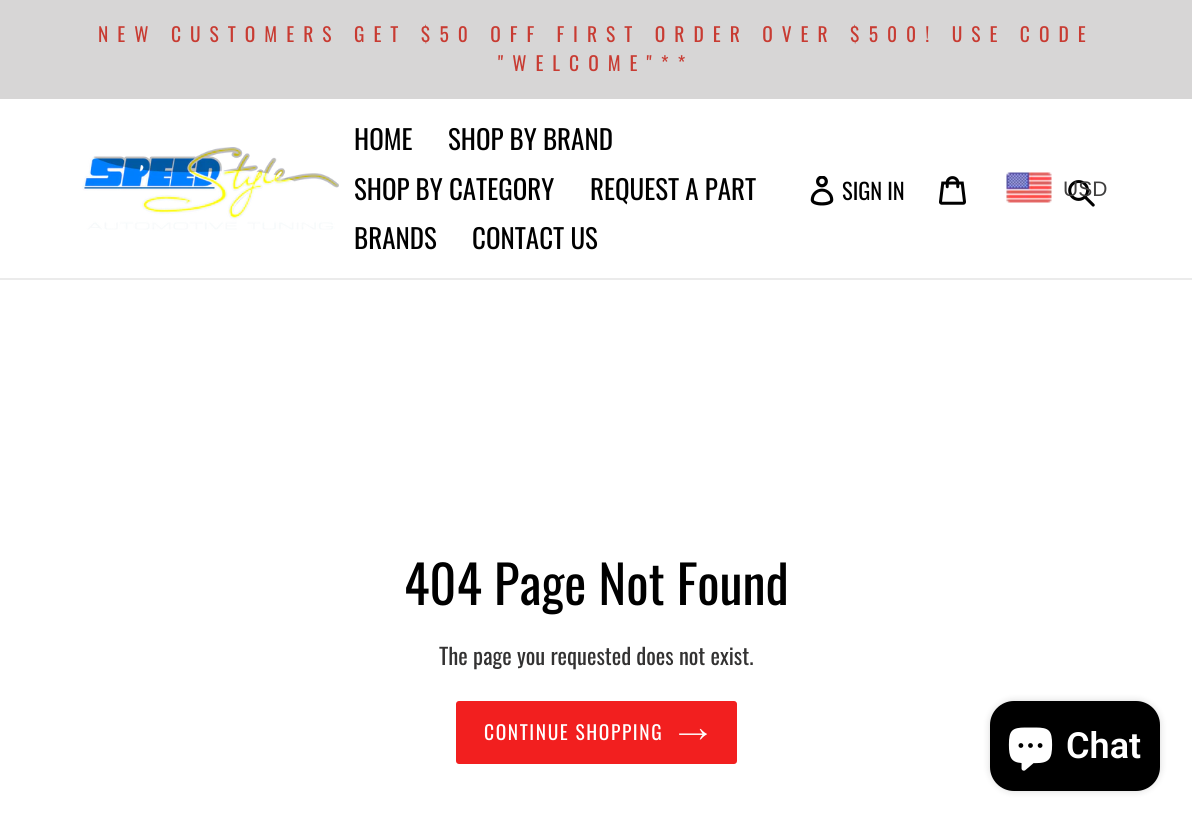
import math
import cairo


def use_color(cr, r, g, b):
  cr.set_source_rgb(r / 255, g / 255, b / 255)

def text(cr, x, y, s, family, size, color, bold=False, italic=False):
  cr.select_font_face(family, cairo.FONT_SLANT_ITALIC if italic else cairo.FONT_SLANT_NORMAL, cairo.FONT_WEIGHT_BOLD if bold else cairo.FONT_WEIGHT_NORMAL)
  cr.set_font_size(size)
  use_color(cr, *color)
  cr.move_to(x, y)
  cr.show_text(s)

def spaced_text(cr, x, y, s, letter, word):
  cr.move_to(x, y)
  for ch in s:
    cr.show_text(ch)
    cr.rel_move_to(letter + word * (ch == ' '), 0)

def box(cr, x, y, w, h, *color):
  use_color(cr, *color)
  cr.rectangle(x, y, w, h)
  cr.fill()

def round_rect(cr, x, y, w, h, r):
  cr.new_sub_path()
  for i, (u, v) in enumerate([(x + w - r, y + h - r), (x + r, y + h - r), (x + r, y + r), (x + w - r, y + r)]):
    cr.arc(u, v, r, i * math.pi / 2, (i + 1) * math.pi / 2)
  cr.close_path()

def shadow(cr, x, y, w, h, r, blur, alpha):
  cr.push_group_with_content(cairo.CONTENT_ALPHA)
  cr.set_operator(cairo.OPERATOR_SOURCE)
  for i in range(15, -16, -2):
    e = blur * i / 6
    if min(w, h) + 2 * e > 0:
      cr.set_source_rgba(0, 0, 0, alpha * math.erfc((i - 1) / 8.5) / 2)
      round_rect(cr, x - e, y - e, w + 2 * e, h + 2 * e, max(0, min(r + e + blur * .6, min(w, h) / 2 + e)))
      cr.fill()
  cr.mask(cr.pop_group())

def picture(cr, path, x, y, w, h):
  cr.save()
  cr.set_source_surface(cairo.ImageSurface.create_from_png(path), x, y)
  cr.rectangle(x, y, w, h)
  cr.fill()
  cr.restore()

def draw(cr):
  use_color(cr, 255, 255, 255)
  cr.paint()
  box(cr, 0, 0, 1192, 99, 215, 214, 214)
  box(cr, 0, 278, 1192, 2, 235, 235, 235)
  picture(cr, "img_01.png", 82, 147, 257, 83)
  picture(cr, "img_02.png", 810, 176, 24, 30)
  picture(cr, "img_03.png", 939, 176, 27, 29)
  picture(cr, "img_04.png", 1068, 180, 27, 27)
  picture(cr, "img_05.png", 1006, 172, 46, 31)
  use_color(cr, 242, 31, 31)
  round_rect(cr, 456, 701, 281, 63, 3)
  cr.fill()
  picture(cr, "img_06.png", 679, 728, 28, 12)
  use_color(cr, 0, 0, 0)
  shadow(cr, 990, 701, 170, 90, 24, 4, 0.15)
  use_color(cr, 0, 0, 0)
  round_rect(cr, 990, 701, 170, 90, 24)
  cr.fill()
  picture(cr, "img_07.png", 1008, 727, 45, 44)
  cr.select_font_face("Oswald")
  cr.set_font_size(19.5)
  use_color(cr, 200, 59, 50)
  spaced_text(cr, 98, 42, "NEW CUSTOMERS GET $50 OFF FIRST ORDER OVER $500! USE CODE", 9, 0)
  spaced_text(cr, 498, 71, "\"WELCOME\"**", 9, 0)
  text(cr, 354, 150, "HOME", "Oswald", 27, (0, 0, 0))
  text(cr, 448, 150, "SHOP BY BRAND", "Oswald", 27, (0, 0, 0))
  text(cr, 354, 200, "SHOP BY CATEGORY", "Oswald", 27, (0, 0, 0))
  text(cr, 590, 200, "REQUEST A PART", "Oswald", 27, (0, 0, 0))
  text(cr, 354, 249, "BRANDS", "Oswald", 27, (0, 0, 0))
  text(cr, 472, 249, "CONTACT US", "Oswald", 27, (0, 0, 0))
  text(cr, 842, 200, "SIGN IN", "Oswald", 22.5, (0, 0, 0))
  text(cr, 1063, 196, "USD", "Liberation Sans", 21, (64, 63, 63))
  text(cr, 404, 605, "404 Page Not Found", "Oswald", 52.5, (0, 0, 0))
  text(cr, 439, 665, "The page you requested does not exist.", "Oswald", 22.5, (51, 50, 50))
  cr.set_font_size(19.5)
  use_color(cr, 255, 255, 255)
  spaced_text(cr, 484, 740, "CONTINUE SHOPPING", 1.6, 0)
  text(cr, 1066, 758, "Chat", "Roboto SemiBold", 36, (255, 255, 255))


surface = cairo.ImageSurface(cairo.FORMAT_RGB24, 1192, 822)
cr = cairo.Context(surface)
options = cairo.FontOptions()
options.set_hint_metrics(cairo.HINT_METRICS_OFF)
options.set_hint_style(cairo.HINT_STYLE_NONE)
cr.set_font_options(options)
cr.set_miter_limit(4)
draw(cr)
surface.write_to_png("out.png")
